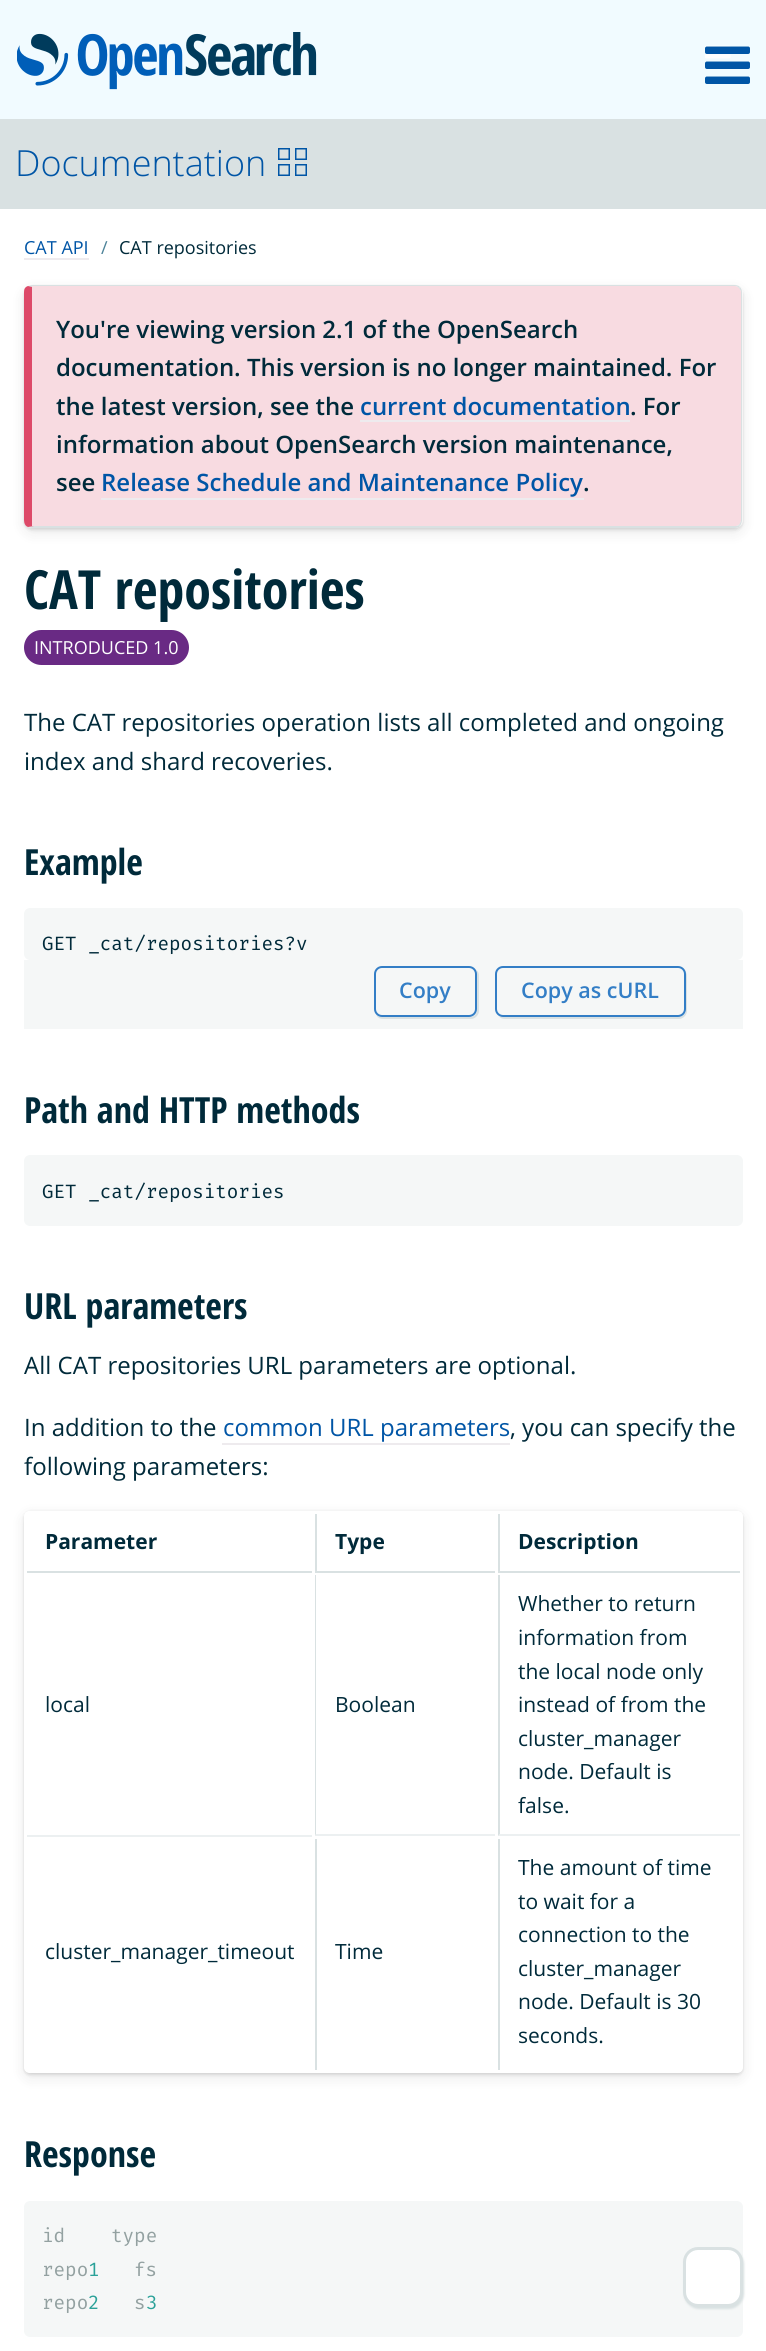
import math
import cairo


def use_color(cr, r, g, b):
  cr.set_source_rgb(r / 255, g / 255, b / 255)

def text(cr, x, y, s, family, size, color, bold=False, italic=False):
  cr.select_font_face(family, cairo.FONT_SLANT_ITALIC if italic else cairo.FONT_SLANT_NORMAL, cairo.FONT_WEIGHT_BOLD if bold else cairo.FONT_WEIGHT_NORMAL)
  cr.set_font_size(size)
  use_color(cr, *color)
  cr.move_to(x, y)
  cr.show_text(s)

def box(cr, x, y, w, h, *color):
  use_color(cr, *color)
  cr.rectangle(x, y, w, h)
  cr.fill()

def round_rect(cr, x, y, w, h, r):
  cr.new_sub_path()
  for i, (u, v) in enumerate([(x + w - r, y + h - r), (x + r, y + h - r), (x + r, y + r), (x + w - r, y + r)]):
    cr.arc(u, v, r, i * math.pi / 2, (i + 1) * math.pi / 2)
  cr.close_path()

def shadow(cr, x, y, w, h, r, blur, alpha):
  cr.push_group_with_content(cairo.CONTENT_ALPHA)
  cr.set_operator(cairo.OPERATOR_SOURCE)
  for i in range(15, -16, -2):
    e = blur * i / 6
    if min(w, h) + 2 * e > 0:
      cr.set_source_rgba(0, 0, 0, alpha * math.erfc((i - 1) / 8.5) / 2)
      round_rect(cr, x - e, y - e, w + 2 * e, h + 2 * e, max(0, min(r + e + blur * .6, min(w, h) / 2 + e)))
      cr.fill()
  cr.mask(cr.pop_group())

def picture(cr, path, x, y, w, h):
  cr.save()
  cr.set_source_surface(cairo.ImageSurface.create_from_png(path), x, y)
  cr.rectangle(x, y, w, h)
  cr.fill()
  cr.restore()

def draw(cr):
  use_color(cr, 255, 255, 255)
  cr.paint()
  box(cr, 0, 0, 766, 119, 241, 251, 255)
  picture(cr, "img_01.png", 17, 32, 300, 58)
  picture(cr, "img_02.png", 705, 45, 26, 19)
  picture(cr, "img_03.png", 705, 46, 45, 38)
  box(cr, 0, 119, 766, 90, 217, 225, 226)
  cr.rectangle(278.75, 148.75, 10.5, 10.5)
  use_color(cr, 0, 85, 166)
  cr.set_line_width(1.5)
  cr.stroke()
  cr.rectangle(295.75, 148.75, 10.5, 10.5)
  cr.stroke()
  cr.rectangle(295.75, 164.75, 10.5, 10.5)
  cr.stroke()
  cr.rectangle(278.75, 164.75, 10.5, 10.5)
  cr.stroke()
  box(cr, 24, 258, 65, 2, 238, 235, 238)
  use_color(cr, 0, 0, 0)
  shadow(cr, 24, 290, 719, 243, 8, 7.5, 0.08)
  cr.save()
  cr.set_fill_rule(cairo.FILL_RULE_EVEN_ODD)
  cr.new_path()
  cr.move_to(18, 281)
  cr.line_to(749, 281)
  cr.line_to(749, 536)
  cr.line_to(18, 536)
  cr.close_path()
  cr.move_to(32, 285)
  cr.line_to(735, 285)
  cr.curve_to(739.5, 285, 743, 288.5, 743, 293)
  cr.line_to(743, 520)
  cr.curve_to(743, 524.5, 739.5, 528, 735, 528)
  cr.line_to(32, 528)
  cr.curve_to(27.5, 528, 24, 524.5, 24, 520)
  cr.line_to(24, 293)
  cr.curve_to(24, 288.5, 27.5, 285, 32, 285)
  cr.close_path()
  cr.clip()
  shadow(cr, 24, 287, 719, 243, 8, 1.5, 0.12)
  cr.restore()
  use_color(cr, 248, 219, 225)
  cr.new_path()
  cr.move_to(32, 286)
  cr.line_to(735, 286)
  cr.curve_to(738, 286, 741, 289, 741, 292)
  cr.line_to(741, 520)
  cr.curve_to(741, 524, 738, 526, 735, 526)
  cr.line_to(32, 526)
  cr.close_path()
  cr.fill()
  use_color(cr, 217, 225, 226)
  cr.new_path()
  cr.move_to(32, 285)
  cr.line_to(28, 286)
  cr.line_to(32, 287)
  cr.line_to(32, 286)
  cr.line_to(735, 286)
  cr.curve_to(737, 286, 738, 287, 739, 288)
  cr.line_to(740, 287)
  cr.curve_to(739, 286, 737, 285, 735, 285)
  cr.close_path()
  cr.fill()
  cr.new_path()
  cr.move_to(740, 287)
  cr.curve_to(741, 288, 742, 290, 742, 292)
  cr.line_to(742, 520)
  cr.curve_to(742, 522, 741, 524, 740, 526)
  cr.line_to(739, 525)
  cr.curve_to(740, 523, 741, 522, 741, 520)
  cr.line_to(741, 291)
  cr.line_to(739, 288)
  cr.close_path()
  cr.fill()
  cr.new_path()
  cr.move_to(32, 528)
  cr.line_to(735, 528)
  cr.curve_to(737, 528, 739, 527, 740, 526)
  cr.line_to(739, 525)
  cr.curve_to(738, 526, 736, 526, 735, 526)
  cr.line_to(34, 526)
  cr.line_to(28, 527)
  cr.close_path()
  cr.fill()
  use_color(cr, 221, 74, 105)
  cr.new_path()
  cr.move_to(24, 292)
  cr.line_to(24, 520)
  cr.curve_to(24, 523, 25, 526, 28, 527)
  cr.line_to(34, 526)
  cr.line_to(32, 526)
  cr.line_to(32, 287)
  cr.line_to(28, 286)
  cr.curve_to(25, 287, 24, 289, 24, 292)
  cr.close_path()
  cr.fill()
  box(cr, 360, 420, 270, 2, 238, 235, 238)
  box(cr, 101, 498, 483, 2, 238, 235, 238)
  use_color(cr, 105, 42, 132)
  round_rect(cr, 24, 630, 165, 35, 17.5)
  cr.fill()
  use_color(cr, 245, 247, 247)
  round_rect(cr, 24, 908, 719, 52, 6)
  cr.fill()
  box(cr, 24, 960, 719, 69, 245, 247, 247)
  use_color(cr, 217, 225, 226)
  cr.new_path()
  cr.move_to(376, 1015)
  cr.curve_to(378, 1018, 380, 1019, 383, 1019)
  cr.line_to(471, 1019)
  cr.curve_to(475, 1019, 479, 1015, 479, 1011)
  cr.line_to(479, 976)
  cr.curve_to(479, 973, 478, 971, 476, 970)
  cr.curve_to(477, 971, 477, 972, 477, 974)
  cr.line_to(477, 1010)
  cr.curve_to(477, 1014, 474, 1017, 470, 1017)
  cr.line_to(381, 1017)
  cr.curve_to(379, 1017, 378, 1016, 376, 1015)
  cr.close_path()
  cr.fill()
  use_color(cr, 245, 247, 247)
  round_rect(cr, 375, 967, 101, 49, 7)
  cr.fill_preserve()
  use_color(cr, 51, 126, 198)
  cr.set_line_width(2)
  cr.stroke()
  use_color(cr, 217, 225, 226)
  cr.new_path()
  cr.move_to(499, 1016)
  cr.curve_to(500, 1018, 502, 1019, 505, 1019)
  cr.line_to(679, 1019)
  cr.curve_to(683, 1019, 687, 1015, 687, 1011)
  cr.line_to(687, 976)
  cr.curve_to(687, 974, 686, 972, 685, 971)
  cr.line_to(686, 974)
  cr.line_to(686, 1010)
  cr.curve_to(686, 1014, 682, 1017, 678, 1017)
  cr.line_to(502, 1017)
  cr.curve_to(501, 1017, 500, 1017, 499, 1016)
  cr.close_path()
  cr.fill()
  use_color(cr, 245, 247, 247)
  round_rect(cr, 496, 967, 189, 49, 7)
  cr.fill_preserve()
  use_color(cr, 51, 126, 198)
  cr.stroke()
  use_color(cr, 245, 247, 247)
  round_rect(cr, 24, 1155, 719, 71, 6)
  cr.fill()
  box(cr, 222, 1443, 288, 2, 238, 235, 238)
  cr.save()
  cr.set_fill_rule(cairo.FILL_RULE_EVEN_ODD)
  cr.new_path()
  cr.move_to(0, 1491)
  cr.line_to(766, 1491)
  cr.line_to(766, 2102)
  cr.line_to(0, 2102)
  cr.close_path()
  cr.move_to(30, 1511)
  cr.line_to(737, 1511)
  cr.curve_to(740.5, 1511, 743, 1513.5, 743, 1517)
  cr.line_to(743, 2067)
  cr.curve_to(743, 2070.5, 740.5, 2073, 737, 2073)
  cr.line_to(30, 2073)
  cr.curve_to(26.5, 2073, 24, 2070.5, 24, 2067)
  cr.line_to(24, 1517)
  cr.curve_to(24, 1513.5, 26.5, 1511, 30, 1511)
  cr.close_path()
  cr.clip()
  use_color(cr, 0, 0, 0)
  shadow(cr, 24, 1515, 719, 563, 6, 7.5, 0.08)
  cr.restore()
  cr.save()
  cr.set_fill_rule(cairo.FILL_RULE_EVEN_ODD)
  cr.new_path()
  cr.move_to(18, 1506)
  cr.line_to(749, 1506)
  cr.line_to(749, 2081)
  cr.line_to(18, 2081)
  cr.close_path()
  cr.move_to(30, 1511)
  cr.line_to(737, 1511)
  cr.curve_to(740.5, 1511, 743, 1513.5, 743, 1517)
  cr.line_to(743, 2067)
  cr.curve_to(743, 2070.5, 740.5, 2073, 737, 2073)
  cr.line_to(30, 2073)
  cr.curve_to(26.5, 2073, 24, 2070.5, 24, 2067)
  cr.line_to(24, 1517)
  cr.curve_to(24, 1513.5, 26.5, 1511, 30, 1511)
  cr.close_path()
  cr.clip()
  use_color(cr, 0, 0, 0)
  shadow(cr, 24, 1512, 719, 563, 6, 1.5, 0.12)
  cr.restore()
  box(cr, 27, 1571, 285, 2, 217, 225, 226)
  box(cr, 315, 1571, 180, 2, 217, 225, 226)
  box(cr, 315, 1514, 2, 58, 217, 225, 226)
  box(cr, 498, 1571, 242, 2, 217, 225, 226)
  box(cr, 498, 1514, 2, 58, 217, 225, 226)
  box(cr, 27, 1835, 285, 2, 236, 240, 241)
  cr.new_path()
  cr.move_to(495, 1836)
  cr.line_to(315, 1836)
  cr.line_to(316, 1834)
  cr.line_to(495, 1834)
  cr.close_path()
  cr.fill()
  use_color(cr, 217, 225, 226)
  cr.new_path()
  cr.move_to(315, 1836)
  cr.line_to(315, 1575)
  cr.line_to(316, 1575)
  cr.line_to(316, 1834)
  cr.close_path()
  cr.fill()
  use_color(cr, 236, 240, 241)
  cr.new_path()
  cr.move_to(740, 1836)
  cr.line_to(498, 1836)
  cr.line_to(500, 1834)
  cr.line_to(740, 1834)
  cr.close_path()
  cr.fill()
  use_color(cr, 217, 225, 226)
  cr.new_path()
  cr.move_to(498, 1836)
  cr.line_to(498, 1575)
  cr.line_to(500, 1575)
  cr.line_to(500, 1834)
  cr.close_path()
  cr.fill()
  box(cr, 315, 1839, 2, 231, 217, 225, 226)
  box(cr, 498, 1839, 2, 231, 217, 225, 226)
  use_color(cr, 245, 247, 247)
  round_rect(cr, 24, 2201, 719, 136, 6)
  cr.fill()
  use_color(cr, 217, 225, 226)
  shadow(cr, 684, 2249, 60, 60, 15, 1, 1)
  use_color(cr, 255, 255, 255)
  round_rect(cr, 684.5, 2248.5, 57, 57, 13.5)
  cr.fill_preserve()
  use_color(cr, 217, 225, 226)
  cr.set_line_width(3)
  cr.stroke()
  text(cr, 15, 176, "Documentation", "Open Sans Light", 36, (0, 85, 166))
  text(cr, 24, 254, "CAT API", "Open Sans", 18, (0, 85, 166))
  text(cr, 101, 254, "/", "Open Sans", 18, (77, 131, 153))
  text(cr, 119, 254, "CAT repositories", "Open Sans", 18, (0, 42, 58))
  text(cr, 56, 338, "You're viewing version 2.1 of the OpenSearch", "Open Sans SemiBold", 24, (0, 42, 58))
  text(cr, 56, 376, "documentation. This version is no longer maintained. For", "Open Sans SemiBold", 24, (0, 42, 58))
  text(cr, 56, 415, "the latest version, see the", "Open Sans SemiBold", 24, (0, 42, 58))
  text(cr, 360, 415, "current documentation", "Open Sans SemiBold", 24, (0, 85, 166))
  text(cr, 630, 415, ". For", "Open Sans SemiBold", 24, (0, 42, 58))
  text(cr, 56, 453, "information about OpenSearch version maintenance,", "Open Sans SemiBold", 24, (0, 42, 58))
  text(cr, 56, 491, "see", "Open Sans SemiBold", 24, (0, 42, 58))
  text(cr, 101, 491, "Release Schedule and Maintenance Policy", "Open Sans SemiBold", 24, (0, 85, 166))
  text(cr, 583, 491, ".", "Open Sans SemiBold", 24, (0, 42, 58))
  text(cr, 24, 609, "CAT repositories", "Open Sans Condensed", 54, (0, 42, 58), bold=True)
  text(cr, 34, 654, "INTRODUCED 1.0", "Open Sans", 18, (255, 255, 255))
  text(cr, 24, 731, "The CAT repositories operation lists all completed and ongoing", "Open Sans", 24, (0, 42, 58))
  text(cr, 24, 770, "index and shard recoveries.", "Open Sans", 24, (0, 42, 58))
  text(cr, 24, 875, "Example", "Open Sans Condensed", 36, (0, 42, 58), bold=True)
  text(cr, 42, 950, "GET _cat/repositories?v", "Fira Mono", 19.25, (0, 42, 58))
  text(cr, 399, 998, "Copy", "Open Sans SemiBold", 21.5, (51, 126, 198))
  text(cr, 521, 998, "Copy as cURL", "Open Sans SemiBold", 21.5, (51, 126, 198))
  text(cr, 24, 1123, "Path and HTTP methods", "Open Sans Condensed", 36, (0, 42, 58), bold=True)
  text(cr, 42, 1198, "GET _cat/repositories", "Fira Mono", 19.25, (0, 42, 58))
  text(cr, 24, 1319, "URL parameters", "Open Sans Condensed", 36, (0, 42, 58), bold=True)
  text(cr, 24, 1374, "All CAT repositories URL parameters are optional.", "Open Sans", 24, (0, 42, 58))
  text(cr, 24, 1436, "In addition to the", "Open Sans", 24, (0, 42, 58))
  text(cr, 223, 1436, "common URL parameters", "Open Sans", 24, (0, 85, 166))
  text(cr, 510, 1436, ", you can specify the", "Open Sans", 24, (0, 42, 58))
  text(cr, 24, 1475, "following parameters:", "Open Sans", 24, (0, 42, 58))
  text(cr, 45, 1549, "Parameter", "Open Sans", 21, (0, 42, 58), bold=True)
  text(cr, 335, 1549, "Type", "Open Sans", 21, (0, 42, 58), bold=True)
  text(cr, 518, 1549, "Description", "Open Sans", 21, (0, 42, 58), bold=True)
  text(cr, 45, 1712, "local", "Open Sans", 21, (0, 42, 58))
  text(cr, 335, 1712, "Boolean", "Open Sans", 21, (0, 42, 58))
  text(cr, 518, 1611, "Whether to return", "Open Sans", 21, (0, 42, 58))
  text(cr, 518, 1645, "information from", "Open Sans", 21, (0, 42, 58))
  text(cr, 518, 1679, "the local node only", "Open Sans", 21, (0, 42, 58))
  text(cr, 518, 1712, "instead of from the", "Open Sans", 21, (0, 42, 58))
  text(cr, 518, 1746, "cluster_manager", "Open Sans", 21, (0, 42, 58))
  text(cr, 518, 1779, "node. Default is", "Open Sans", 21, (0, 42, 58))
  text(cr, 518, 1813, "false.", "Open Sans", 21, (0, 42, 58))
  text(cr, 45, 1959, "cluster_manager_timeout", "Open Sans", 21, (0, 42, 58))
  text(cr, 335, 1959, "Time", "Open Sans", 21, (0, 42, 58))
  text(cr, 518, 1875, "The amount of time", "Open Sans", 21, (0, 42, 58))
  text(cr, 518, 1909, "to wait for a", "Open Sans", 21, (0, 42, 58))
  text(cr, 518, 1942, "connection to the", "Open Sans", 21, (0, 42, 58))
  text(cr, 518, 1976, "cluster_manager", "Open Sans", 21, (0, 42, 58))
  text(cr, 518, 2009, "node. Default is 30", "Open Sans", 21, (0, 42, 58))
  text(cr, 518, 2043, "seconds.", "Open Sans", 21, (0, 42, 58))
  text(cr, 24, 2167, "Response", "Open Sans Condensed", 36, (0, 42, 58), bold=True)
  text(cr, 42, 2242, "id", "Fira Mono", 19.25, (147, 161, 161))
  text(cr, 111, 2242, "type", "Fira Mono", 19.25, (147, 161, 161))
  text(cr, 42, 2276, "repo", "Fira Mono", 19.25, (147, 161, 161))
  text(cr, 88, 2276, "1", "Fira Mono", 19.25, (42, 161, 152))
  text(cr, 134, 2276, "fs", "Fira Mono", 19.25, (147, 161, 161))
  text(cr, 42, 2309, "repo", "Fira Mono", 19.25, (147, 161, 161))
  text(cr, 88, 2309, "2", "Fira Mono", 19.25, (42, 161, 152))
  text(cr, 134, 2309, "s", "Fira Mono", 19.25, (147, 161, 161))
  text(cr, 146, 2309, "3", "Fira Mono", 19.25, (42, 161, 152))


surface = cairo.ImageSurface(cairo.FORMAT_RGB24, 766, 2351)
cr = cairo.Context(surface)
options = cairo.FontOptions()
options.set_hint_metrics(cairo.HINT_METRICS_OFF)
options.set_hint_style(cairo.HINT_STYLE_NONE)
cr.set_font_options(options)
cr.set_miter_limit(4)
draw(cr)
surface.write_to_png("out.png")
